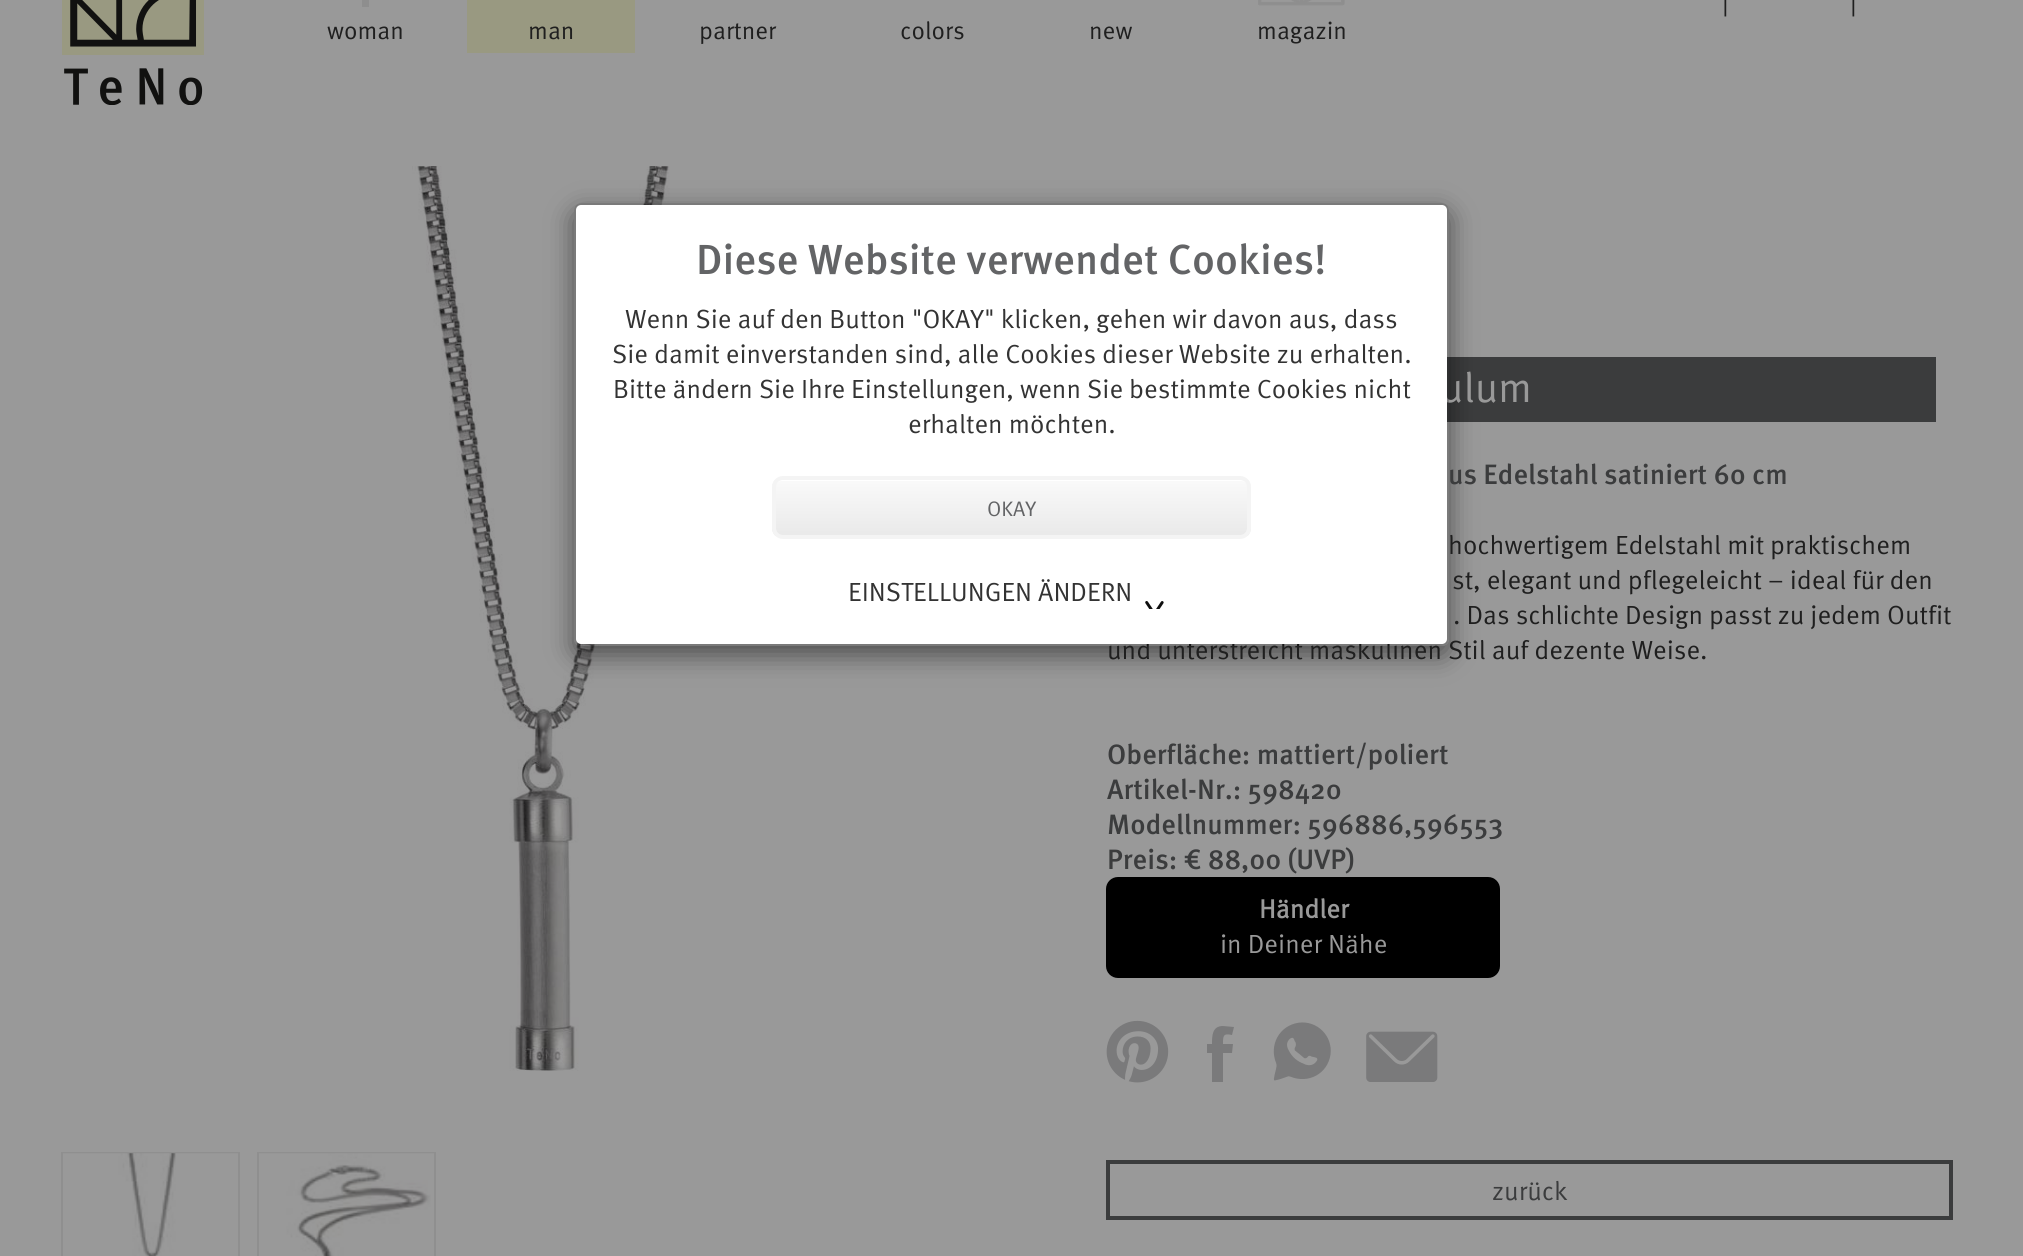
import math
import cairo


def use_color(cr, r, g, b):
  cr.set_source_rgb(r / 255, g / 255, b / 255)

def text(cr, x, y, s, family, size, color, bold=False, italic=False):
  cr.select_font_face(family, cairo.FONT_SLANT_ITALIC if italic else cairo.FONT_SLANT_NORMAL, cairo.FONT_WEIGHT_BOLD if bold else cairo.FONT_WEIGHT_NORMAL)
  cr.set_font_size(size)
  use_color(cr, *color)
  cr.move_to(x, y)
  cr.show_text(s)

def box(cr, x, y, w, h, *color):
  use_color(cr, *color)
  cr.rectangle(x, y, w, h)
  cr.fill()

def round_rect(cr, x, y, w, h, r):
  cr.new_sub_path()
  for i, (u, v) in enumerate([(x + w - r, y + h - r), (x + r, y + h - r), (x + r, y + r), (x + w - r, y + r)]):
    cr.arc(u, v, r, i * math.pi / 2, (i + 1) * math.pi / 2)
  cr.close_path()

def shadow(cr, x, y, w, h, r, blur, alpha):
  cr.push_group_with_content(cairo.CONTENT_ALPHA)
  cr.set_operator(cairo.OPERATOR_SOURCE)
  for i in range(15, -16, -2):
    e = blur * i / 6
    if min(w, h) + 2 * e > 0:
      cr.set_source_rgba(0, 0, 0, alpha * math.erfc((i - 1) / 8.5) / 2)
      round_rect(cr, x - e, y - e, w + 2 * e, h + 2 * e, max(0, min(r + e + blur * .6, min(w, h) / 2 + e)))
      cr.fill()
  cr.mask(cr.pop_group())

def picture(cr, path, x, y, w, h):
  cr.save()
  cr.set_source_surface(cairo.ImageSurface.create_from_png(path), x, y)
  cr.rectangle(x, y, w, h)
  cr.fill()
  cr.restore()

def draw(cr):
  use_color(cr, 153, 153, 153)
  cr.paint()
  picture(cr, "img_01.png", 62, 0, 142, 105)
  box(cr, 362, 0, 7, 7, 142, 142, 142)
  box(cr, 467, 0, 168, 53, 153, 153, 129)
  picture(cr, "img_02.png", 1258, 0, 87, 6)
  picture(cr, "img_03.png", 412, 166, 258, 905)
  cr.rectangle(62, 1153, 177, 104)
  use_color(cr, 143, 143, 143)
  cr.stroke()
  picture(cr, "img_04.png", 63, 1153, 175, 103)
  cr.rectangle(258, 1153, 177, 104)
  cr.stroke()
  picture(cr, "img_05.png", 259, 1153, 175, 103)
  box(cr, 1447, 357, 489, 65, 59, 60, 61)
  use_color(cr, 0, 0, 0)
  round_rect(cr, 1106, 877, 394, 101, 12)
  cr.fill()
  picture(cr, "img_06.png", 1106, 1020, 63, 63)
  use_color(cr, 122, 122, 123)
  cr.new_path()
  cr.move_to(1207, 1044)
  cr.line_to(1212, 1044)
  cr.curve_to(1212, 1036, 1212, 1026, 1223, 1026)
  cr.line_to(1234, 1027)
  cr.line_to(1232, 1035)
  cr.curve_to(1223, 1033, 1223, 1036, 1223, 1044)
  cr.line_to(1233, 1044)
  cr.line_to(1232, 1053)
  cr.line_to(1223, 1053)
  cr.line_to(1223, 1082)
  cr.line_to(1212, 1082)
  cr.line_to(1212, 1053)
  cr.line_to(1207, 1053)
  cr.close_path()
  cr.fill()
  picture(cr, "img_07.png", 1273, 1022, 58, 59)
  picture(cr, "img_08.png", 1366, 1031, 72, 51)
  cr.rectangle(1108, 1162, 843, 56)
  use_color(cr, 59, 60, 61)
  cr.set_line_width(4)
  cr.stroke()
  cr.save()
  cr.set_fill_rule(cairo.FILL_RULE_EVEN_ODD)
  cr.new_path()
  cr.move_to(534, 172)
  cr.line_to(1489, 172)
  cr.line_to(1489, 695)
  cr.line_to(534, 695)
  cr.close_path()
  cr.move_to(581, 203)
  cr.line_to(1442, 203)
  cr.curve_to(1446, 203, 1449, 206, 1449, 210)
  cr.line_to(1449, 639)
  cr.curve_to(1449, 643, 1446, 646, 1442, 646)
  cr.line_to(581, 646)
  cr.curve_to(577, 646, 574, 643, 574, 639)
  cr.line_to(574, 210)
  cr.curve_to(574, 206, 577, 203, 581, 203)
  cr.close_path()
  cr.clip()
  use_color(cr, 0, 0, 0)
  shadow(cr, 574, 212, 875, 443, 7, 13, 0.5)
  cr.restore()
  text(cr, 1722, 11, "|", "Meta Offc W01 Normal", 26.25, (31, 31, 31))
  text(cr, 1850, 11, "|", "Meta Offc W01 Normal", 26.25, (31, 31, 31))
  text(cr, 327, 39, "woman", "Meta Offc W01 Normal", 24.5, (31, 31, 31))
  text(cr, 528, 39, "man", "Meta Offc W01 Normal", 24.5, (31, 31, 31))
  text(cr, 699, 39, "partner", "Meta Offc W01 Normal", 24.5, (31, 31, 31))
  text(cr, 900, 39, "colors", "Meta Offc W01 Normal", 24.5, (31, 31, 31))
  text(cr, 1089, 39, "new", "Meta Offc W01 Normal", 24.5, (31, 31, 31))
  text(cr, 1257, 39, "magazin", "Meta Offc W01 Normal", 24.5, (31, 31, 31))
  text(cr, 1440, 402, "ulum", "Meta Offc W01 Normal", 42, (153, 153, 153))
  text(cr, 1448, 484, "us Edelstahl satiniert 60 cm", "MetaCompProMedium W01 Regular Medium", 28, (59, 60, 61))
  text(cr, 1448, 554, "hochwertigem Edelstahl mit praktischem", "Meta Offc W01 Normal", 26.25, (31, 31, 31))
  text(cr, 1452, 589, "st, elegant und pflegeleicht – ideal für den", "Meta Offc W01 Normal", 26.25, (31, 31, 31))
  text(cr, 1453, 624, ". Das schlichte Design passt zu jedem Outfit", "Meta Offc W01 Normal", 26.25, (31, 31, 31))
  text(cr, 1107, 659, "und unterstreicht maskulinen Stil auf dezente Weise.", "Meta Offc W01 Normal", 26.25, (31, 31, 31))
  text(cr, 1107, 764, "Oberfläche: mattiert/poliert", "MetaCompProMedium W01 Regular Medium", 28, (59, 60, 61))
  text(cr, 1107, 799, "Artikel-Nr.: 598420", "MetaCompProMedium W01 Regular Medium", 28, (59, 60, 61))
  text(cr, 1107, 834, "Modellnummer: 596886,596553", "MetaCompProMedium W01 Regular Medium", 28, (59, 60, 61))
  text(cr, 1107, 869, "Preis: € 88,00 (UVP)", "MetaCompProMedium W01 Regular Medium", 28, (59, 60, 61))
  text(cr, 1259, 918, "Händler", "Meta Offc W01 Normal", 26.25, (153, 153, 153), bold=True)
  text(cr, 1220, 953, "in Deiner Nähe", "Meta Offc W01 Normal", 26.25, (153, 153, 153))
  text(cr, 1492, 1200, "zurück", "Meta Offc W01 Normal", 26.25, (59, 60, 61))
  use_color(cr, 255, 255, 255)
  round_rect(cr, 576, 205, 871, 439, 5)
  cr.fill()
  round_rect(cr, 575, 204, 873, 441, 6)
  cr.set_source_rgba(0, 0, 0, 0.2)
  cr.set_line_width(2)
  cr.stroke()
  text(cr, 696, 274, "Diese Website verwendet Cookies!", "MetaCompProMedium W01 Regular Medium", 42, (99, 100, 102))
  text(cr, 625, 328, "Wenn Sie auf den Button \"OKAY\" klicken, gehen wir davon aus, dass", "Meta Offc W01 Normal", 26.25, (51, 51, 51))
  text(cr, 612, 363, "Sie damit einverstanden sind, alle Cookies dieser Website zu erhalten.", "Meta Offc W01 Normal", 26.25, (51, 51, 51))
  text(cr, 613, 398, "Bitte ändern Sie Ihre Einstellungen, wenn Sie bestimmte Cookies nicht", "Meta Offc W01 Normal", 26.25, (51, 51, 51))
  text(cr, 908, 433, "erhalten möchten.", "Meta Offc W01 Normal", 26.25, (51, 51, 51))
  cr.save()
  round_rect(cr, 772, 476, 479, 63, 11)
  cr.clip()
  gradient = cairo.LinearGradient(1012, 480, 1012, 536)
  gradient.add_color_stop_rgba(0.05, 0.976, 0.976, 0.976, 1)
  gradient.add_color_stop_rgba(1, 0.914, 0.914, 0.914, 1)
  cr.set_source(gradient)
  cr.rectangle(772, 480, 479, 56)
  cr.fill()
  cr.restore()
  use_color(cr, 255, 255, 255)
  cr.new_path()
  cr.move_to(782, 481)
  cr.line_to(1241, 481)
  cr.curve_to(1245, 481, 1248, 484, 1248, 488)
  cr.line_to(1248, 487)
  cr.curve_to(1248, 483, 1245, 480, 1241, 480)
  cr.line_to(782, 480)
  cr.curve_to(778, 480, 775, 483, 775, 487)
  cr.line_to(775, 488)
  cr.curve_to(775, 484, 778, 481, 782, 481)
  cr.close_path()
  cr.fill()
  round_rect(cr, 774, 478, 475, 59, 9)
  use_color(cr, 244, 244, 244)
  cr.set_line_width(4)
  cr.stroke()
  text(cr, 987, 516, "OKAY", "Meta Offc W01 Normal", 21, (99, 100, 102))
  text(cr, 848, 601, "EINSTELLUNGEN ÄNDERN", "Meta Offc W01 Normal", 26.25, (51, 51, 51))
  picture(cr, "img_09.png", 1145, 601, 19, 8)


surface = cairo.ImageSurface(cairo.FORMAT_RGB24, 2023, 1256)
cr = cairo.Context(surface)
options = cairo.FontOptions()
options.set_hint_metrics(cairo.HINT_METRICS_OFF)
options.set_hint_style(cairo.HINT_STYLE_NONE)
cr.set_font_options(options)
cr.set_miter_limit(4)
draw(cr)
surface.write_to_png("out.png")
